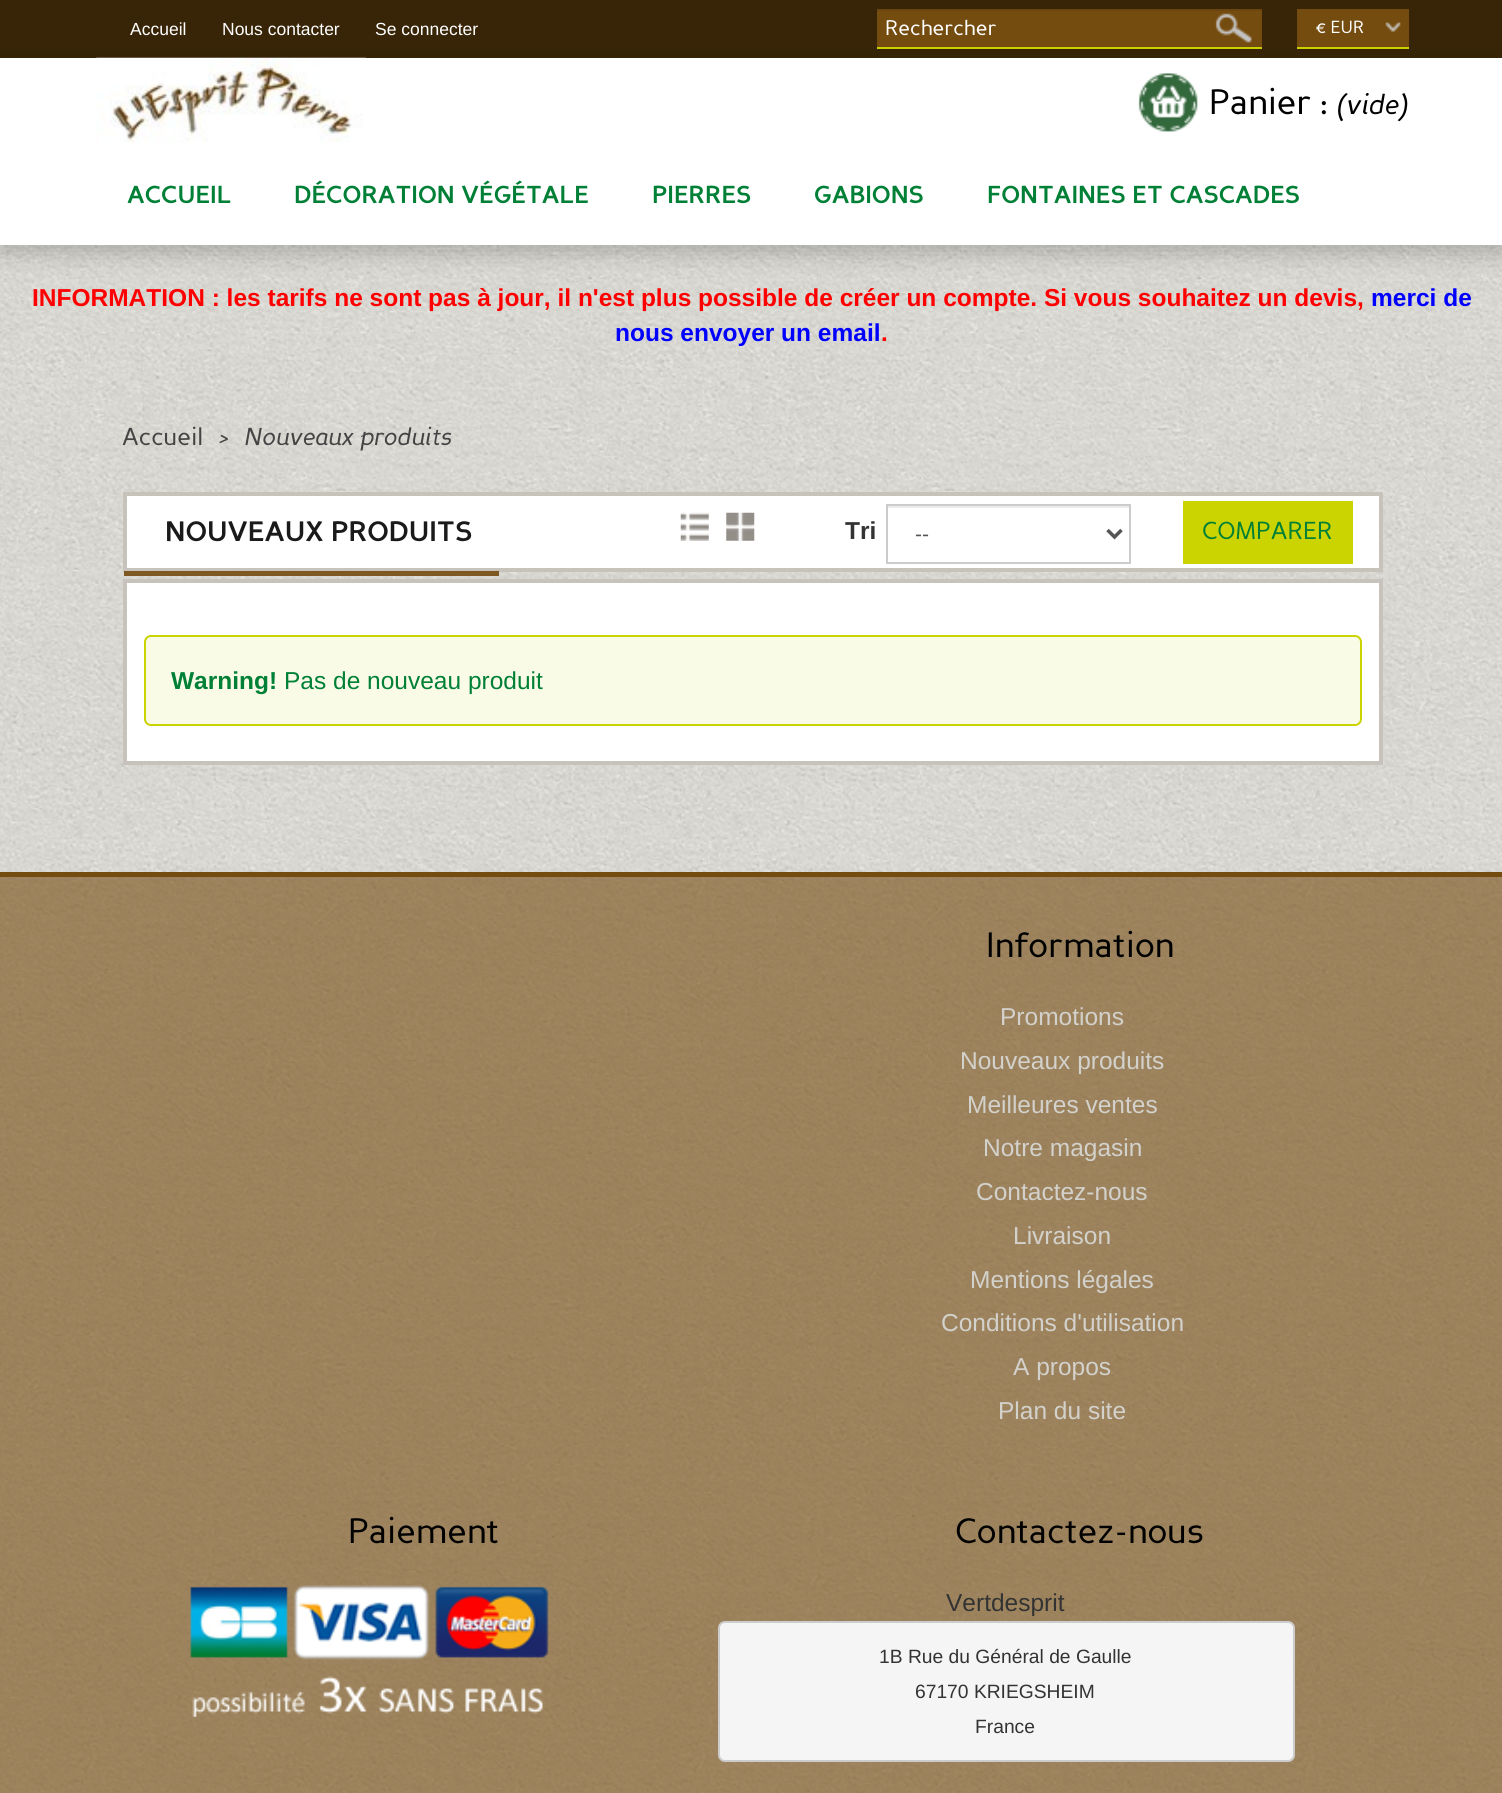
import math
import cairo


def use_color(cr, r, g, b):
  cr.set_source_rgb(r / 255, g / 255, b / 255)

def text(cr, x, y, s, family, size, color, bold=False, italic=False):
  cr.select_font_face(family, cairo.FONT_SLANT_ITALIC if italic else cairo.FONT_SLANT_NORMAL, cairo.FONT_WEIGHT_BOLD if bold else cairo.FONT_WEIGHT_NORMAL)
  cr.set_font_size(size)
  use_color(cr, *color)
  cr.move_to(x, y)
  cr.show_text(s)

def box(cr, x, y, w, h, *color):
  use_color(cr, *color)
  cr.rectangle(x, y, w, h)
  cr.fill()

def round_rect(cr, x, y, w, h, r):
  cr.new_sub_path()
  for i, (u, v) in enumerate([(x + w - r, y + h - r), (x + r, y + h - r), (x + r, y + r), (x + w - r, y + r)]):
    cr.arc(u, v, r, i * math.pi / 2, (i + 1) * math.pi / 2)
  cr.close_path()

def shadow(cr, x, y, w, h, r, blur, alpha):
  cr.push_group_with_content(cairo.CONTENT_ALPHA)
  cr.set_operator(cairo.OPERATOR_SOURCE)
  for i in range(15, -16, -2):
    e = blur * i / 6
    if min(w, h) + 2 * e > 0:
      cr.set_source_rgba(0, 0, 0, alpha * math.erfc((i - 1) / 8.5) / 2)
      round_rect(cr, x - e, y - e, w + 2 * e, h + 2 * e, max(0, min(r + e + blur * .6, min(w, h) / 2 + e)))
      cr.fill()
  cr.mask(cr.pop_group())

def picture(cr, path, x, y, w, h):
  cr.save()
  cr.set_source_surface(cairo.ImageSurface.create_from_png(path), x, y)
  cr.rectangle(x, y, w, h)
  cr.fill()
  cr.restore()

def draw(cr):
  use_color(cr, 255, 255, 255)
  cr.paint()
  picture(cr, "img_01.png", 0, 245, 1502, 1548)
  box(cr, 0, 0, 1502, 58, 56, 37, 7)
  box(cr, 877, 11, 385, 36, 117, 76, 15)
  picture(cr, "img_02.png", 1215, 13, 37, 30)
  box(cr, 877, 9, 385, 2, 108, 70, 14)
  box(cr, 877, 47, 385, 2, 203, 211, 1)
  box(cr, 1297, 9, 112, 38, 117, 76, 15)
  box(cr, 1297, 47, 112, 2, 203, 211, 1)
  picture(cr, "img_03.png", 1385, 22, 16, 10)
  use_color(cr, 0, 0, 0)
  shadow(cr, 0, 67, 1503, 187, 0, 11.5, 0.2)
  box(cr, 0, 58, 1502, 187, 255, 255, 255)
  picture(cr, "img_04.png", 96, 57, 270, 86)
  picture(cr, "img_05.png", 1138, 73, 60, 59)
  cr.rectangle(125, 494, 1256, 76)
  cr.fill_preserve()
  use_color(cr, 199, 194, 186)
  cr.set_line_width(4)
  cr.stroke()
  cr.set_source_rgba(0.459, 0.298, 0.059, 0.9)
  cr.rectangle(124, 571, 375, 5)
  cr.fill()
  picture(cr, "img_06.png", 680, 512, 29, 29)
  picture(cr, "img_07.png", 726, 512, 29, 29)
  box(cr, 887, 506, 242, 2, 236, 236, 236)
  cr.rectangle(887, 505, 243, 58)
  use_color(cr, 204, 204, 204)
  cr.set_line_width(2)
  cr.stroke()
  cr.new_path()
  cr.move_to(1107.5, 530)
  cr.line_to(1114.5, 537)
  cr.line_to(1121.5, 530)
  use_color(cr, 85, 85, 85)
  cr.set_line_width(3.5)
  cr.stroke()
  box(cr, 1183, 501, 170, 63, 203, 211, 1)
  use_color(cr, 255, 255, 255)
  cr.rectangle(125, 581, 1256, 182)
  cr.fill_preserve()
  use_color(cr, 199, 194, 186)
  cr.set_line_width(4)
  cr.stroke()
  use_color(cr, 250, 251, 230)
  round_rect(cr, 145, 636, 1216, 89, 6)
  cr.fill_preserve()
  use_color(cr, 203, 211, 1)
  cr.set_line_width(2)
  cr.stroke()
  cr.set_source_rgba(0.459, 0.298, 0.059, 0.6)
  cr.rectangle(0, 877, 1502, 916)
  cr.fill()
  box(cr, 0, 872, 1502, 5, 117, 76, 15)
  picture(cr, "img_08.png", 190, 1585, 359, 132)
  use_color(cr, 245, 245, 245)
  round_rect(cr, 719, 1622, 575, 139, 6)
  cr.fill_preserve()
  use_color(cr, 204, 204, 204)
  cr.stroke()
  text(cr, 130, 35, "Accueil", "Liberation Sans", 17.5, (255, 255, 255))
  text(cr, 222, 35, "Nous contacter", "Liberation Sans", 17.5, (255, 255, 255))
  text(cr, 375, 35, "Se connecter", "Liberation Sans", 17.5, (255, 255, 255))
  text(cr, 885, 35, "Rechercher", "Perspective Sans", 21, (255, 255, 255))
  text(cr, 1315, 33, "€ EUR", "Perspective Sans", 17.5, (255, 255, 255))
  text(cr, 1209, 114, "Panier :", "Perspective Sans", 35, (0, 0, 0))
  text(cr, 1337, 114, "(vide)", "Perspective Sans", 28, (0, 0, 0), italic=True)
  text(cr, 127, 203, "ACCUEIL", "Perspective Sans", 24.5, (0, 128, 54), bold=True)
  text(cr, 294, 203, "DÉCORATION VÉGÉTALE", "Perspective Sans", 24.5, (0, 128, 54), bold=True)
  text(cr, 652, 203, "PIERRES", "Perspective Sans", 24.5, (0, 128, 54), bold=True)
  text(cr, 814, 203, "GABIONS", "Perspective Sans", 24.5, (0, 128, 54), bold=True)
  text(cr, 987, 203, "FONTAINES ET CASCADES", "Perspective Sans", 24.5, (0, 128, 54), bold=True)
  text(cr, 32, 306, "INFORMATION : les tarifs ne sont pas à jour, il n'est plus possible de créer un compte. Si vous souhaitez un devis,", "Liberation Sans", 24.5, (255, 0, 0), bold=True)
  text(cr, 1371, 306, "merci de", "Liberation Sans", 24.5, (0, 0, 255), bold=True)
  text(cr, 615, 341, "nous envoyer un email", "Liberation Sans", 24.5, (0, 0, 255), bold=True)
  text(cr, 881, 341, ".", "Liberation Sans", 24.5, (255, 0, 0), bold=True)
  text(cr, 122, 445, "Accueil", "Perspective Sans", 24.5, (68, 68, 68))
  text(cr, 218, 445, ">", "Perspective Sans", 24.5, (68, 68, 68), italic=True)
  text(cr, 245, 445, "Nouveaux produits", "Perspective Sans", 24.5, (68, 68, 68), italic=True)
  text(cr, 165, 541, "NOUVEAUX PRODUITS", "Perspective Sans", 28, (26, 26, 26), bold=True)
  text(cr, 845, 539, "Tri", "Liberation Sans", 24.5, (51, 51, 51), bold=True)
  text(cr, 915, 541, "--", "Liberation Sans", 21, (85, 85, 85))
  text(cr, 1202, 539, "COMPARER", "Perspective Sans", 24.5, (0, 128, 54))
  text(cr, 171, 689, "Warning!", "Liberation Sans", 24.5, (0, 128, 54), bold=True)
  text(cr, 284, 689, "Pas de nouveau produit", "Liberation Sans", 24.5, (0, 128, 54))
  text(cr, 986, 957, "Information", "Perspective Sans", 35, (0, 0, 0))
  text(cr, 1000, 1025, "Promotions", "Liberation Sans", 24.5, (211, 209, 204))
  text(cr, 960, 1069, "Nouveaux produits", "Liberation Sans", 24.5, (211, 209, 204))
  text(cr, 967, 1113, "Meilleures ventes", "Liberation Sans", 24.5, (211, 209, 204))
  text(cr, 983, 1156, "Notre magasin", "Liberation Sans", 24.5, (211, 209, 204))
  text(cr, 976, 1200, "Contactez-nous", "Liberation Sans", 24.5, (211, 209, 204))
  text(cr, 1013, 1244, "Livraison", "Liberation Sans", 24.5, (211, 209, 204))
  text(cr, 970, 1288, "Mentions légales", "Liberation Sans", 24.5, (211, 209, 204))
  text(cr, 941, 1331, "Conditions d'utilisation", "Liberation Sans", 24.5, (211, 209, 204))
  text(cr, 1013, 1375, "A propos", "Liberation Sans", 24.5, (211, 209, 204))
  text(cr, 998, 1419, "Plan du site", "Liberation Sans", 24.5, (211, 209, 204))
  text(cr, 348, 1543, "Paiement", "Perspective Sans", 35, (0, 0, 0))
  text(cr, 955, 1543, "Contactez-nous", "Perspective Sans", 35, (0, 0, 0))
  text(cr, 946, 1611, "Vertdesprit", "Liberation Sans", 24.5, (51, 51, 51))
  text(cr, 879, 1663, "1B Rue du Général de Gaulle", "Liberation Sans", 19.25, (51, 51, 51))
  text(cr, 915, 1698, "67170 KRIEGSHEIM", "Liberation Sans", 19.25, (51, 51, 51))
  text(cr, 975, 1733, "France", "Liberation Sans", 19.25, (51, 51, 51))


surface = cairo.ImageSurface(cairo.FORMAT_RGB24, 1502, 1793)
cr = cairo.Context(surface)
options = cairo.FontOptions()
options.set_hint_metrics(cairo.HINT_METRICS_OFF)
options.set_hint_style(cairo.HINT_STYLE_NONE)
cr.set_font_options(options)
cr.set_miter_limit(4)
draw(cr)
surface.write_to_png("out.png")
